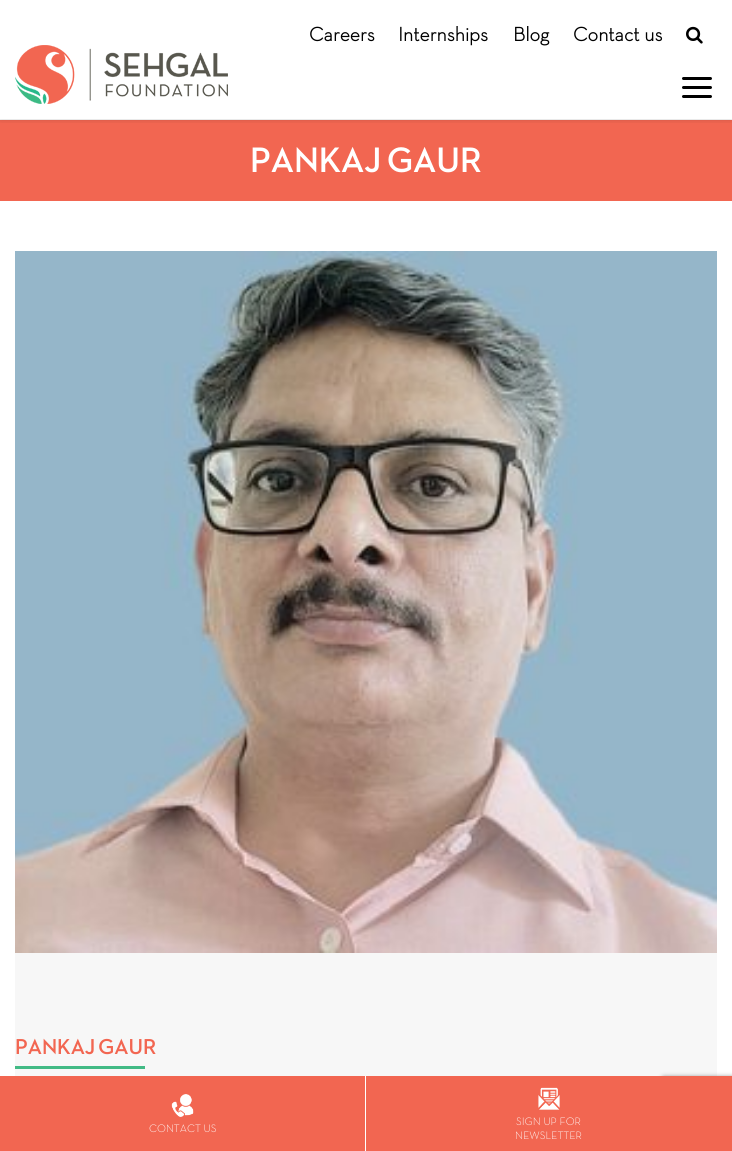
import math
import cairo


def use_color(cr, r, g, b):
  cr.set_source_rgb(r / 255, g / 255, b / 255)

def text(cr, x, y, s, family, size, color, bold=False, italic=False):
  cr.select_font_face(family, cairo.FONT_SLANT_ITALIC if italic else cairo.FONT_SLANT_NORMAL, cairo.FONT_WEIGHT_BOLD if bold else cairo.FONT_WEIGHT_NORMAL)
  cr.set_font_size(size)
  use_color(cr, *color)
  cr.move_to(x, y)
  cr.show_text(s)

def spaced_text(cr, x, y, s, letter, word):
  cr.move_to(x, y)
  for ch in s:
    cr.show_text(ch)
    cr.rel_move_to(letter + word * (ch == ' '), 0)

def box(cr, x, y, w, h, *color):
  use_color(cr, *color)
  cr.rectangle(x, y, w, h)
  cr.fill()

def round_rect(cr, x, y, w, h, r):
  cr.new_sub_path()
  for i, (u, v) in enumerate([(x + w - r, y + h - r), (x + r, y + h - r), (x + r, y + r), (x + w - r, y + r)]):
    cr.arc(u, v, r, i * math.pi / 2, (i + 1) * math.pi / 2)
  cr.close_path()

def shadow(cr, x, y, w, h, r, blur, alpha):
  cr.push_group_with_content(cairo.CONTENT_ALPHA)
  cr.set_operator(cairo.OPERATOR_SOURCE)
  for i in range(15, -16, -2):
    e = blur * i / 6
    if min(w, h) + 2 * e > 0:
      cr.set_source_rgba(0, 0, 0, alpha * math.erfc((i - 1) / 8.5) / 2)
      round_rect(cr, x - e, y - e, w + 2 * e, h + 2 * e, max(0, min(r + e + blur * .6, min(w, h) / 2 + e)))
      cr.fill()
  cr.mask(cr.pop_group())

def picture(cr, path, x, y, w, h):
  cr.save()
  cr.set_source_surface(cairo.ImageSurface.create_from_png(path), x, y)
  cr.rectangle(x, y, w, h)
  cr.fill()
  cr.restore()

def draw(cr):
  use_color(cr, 255, 255, 255)
  cr.paint()
  box(cr, 0, 120, 732, 81, 242, 102, 81)
  cr.save()
  cr.rectangle(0, 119, 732, 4)
  cr.clip()
  use_color(cr, 0, 0, 0)
  shadow(cr, 0, 1, 732, 119, 0, 3, 0.15)
  cr.restore()
  picture(cr, "img_01.png", 686, 26, 17, 18)
  picture(cr, "img_02.png", 15, 45, 213, 59)
  use_color(cr, 0, 0, 0)
  round_rect(cr, 682, 86, 30, 3, 1.5)
  cr.fill()
  round_rect(cr, 682, 77, 30, 3, 1.5)
  cr.fill()
  round_rect(cr, 682, 95, 30, 3, 1.5)
  cr.fill()
  box(cr, 15, 953, 702, 123, 247, 247, 247)
  picture(cr, "img_03.png", 15, 251, 702, 702)
  box(cr, 15, 1066, 130, 3, 66, 186, 133)
  use_color(cr, 128, 128, 128)
  shadow(cr, 662, 1077, 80, 60, 2, 2.5, 1)
  box(cr, 0, 1076, 732, 75, 242, 102, 81)
  box(cr, 365, 1076, 1, 75, 255, 255, 255)
  picture(cr, "img_04.png", 171, 1094, 23, 23)
  picture(cr, "img_05.png", 538, 1087, 22, 23)
  text(cr, 309, 41, "Careers", "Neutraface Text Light", 20, (0, 0, 0), bold=True)
  text(cr, 398, 41, "Internships", "Neutraface Text Light", 20, (0, 0, 0), bold=True)
  text(cr, 513, 41, "Blog", "Neutraface Text Light", 20, (0, 0, 0), bold=True)
  text(cr, 573, 41, "Contact us", "Neutraface Text Light", 20, (0, 0, 0), bold=True)
  cr.select_font_face("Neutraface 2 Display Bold", cairo.FONT_SLANT_NORMAL, cairo.FONT_WEIGHT_BOLD)
  cr.set_font_size(36)
  use_color(cr, 255, 255, 255)
  spaced_text(cr, 250, 172, "PANKAJ GAUR", 0, -1)
  cr.set_font_size(22)
  use_color(cr, 242, 102, 81)
  spaced_text(cr, 15, 1054, "PANKAJ GAUR", 0, -1)
  text(cr, 149, 1132, "CONTACT US", "Neutraface Text Light Light", 11, (255, 255, 255))
  text(cr, 516, 1125, "SIGN UP FOR", "Neutraface Text Light Light", 11, (255, 255, 255))
  text(cr, 515, 1139, "NEWSLETTER", "Neutraface Text Light Light", 11, (255, 255, 255))


surface = cairo.ImageSurface(cairo.FORMAT_RGB24, 732, 1151)
cr = cairo.Context(surface)
options = cairo.FontOptions()
options.set_hint_metrics(cairo.HINT_METRICS_OFF)
options.set_hint_style(cairo.HINT_STYLE_NONE)
cr.set_font_options(options)
cr.set_miter_limit(4)
draw(cr)
surface.write_to_png("out.png")
